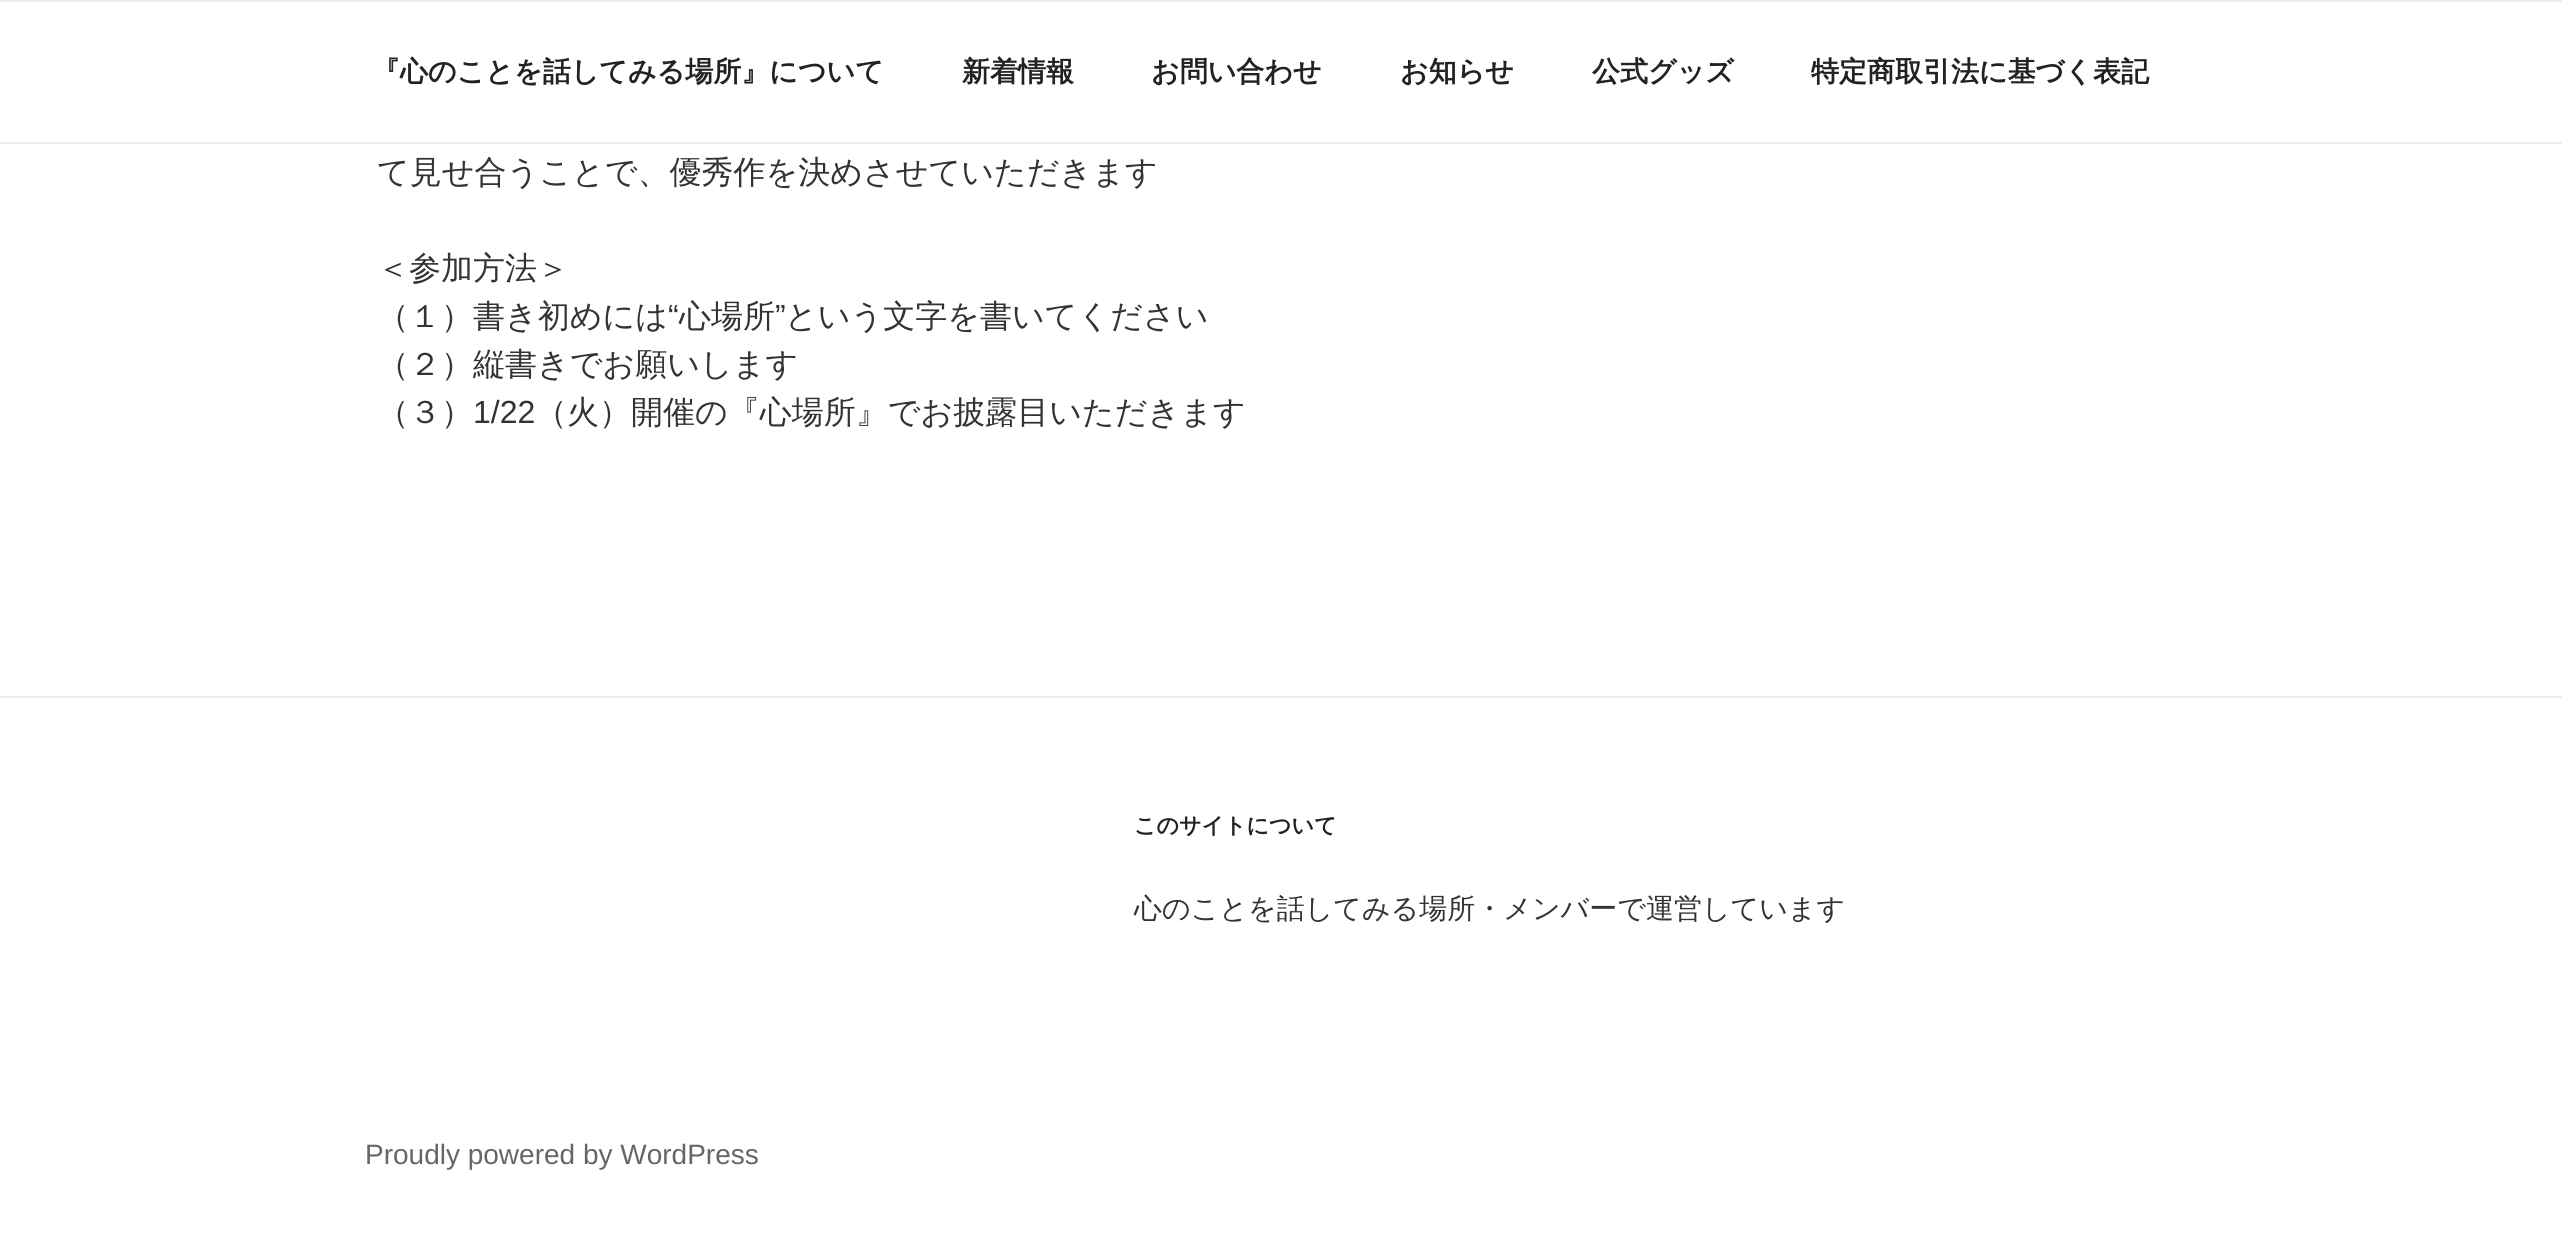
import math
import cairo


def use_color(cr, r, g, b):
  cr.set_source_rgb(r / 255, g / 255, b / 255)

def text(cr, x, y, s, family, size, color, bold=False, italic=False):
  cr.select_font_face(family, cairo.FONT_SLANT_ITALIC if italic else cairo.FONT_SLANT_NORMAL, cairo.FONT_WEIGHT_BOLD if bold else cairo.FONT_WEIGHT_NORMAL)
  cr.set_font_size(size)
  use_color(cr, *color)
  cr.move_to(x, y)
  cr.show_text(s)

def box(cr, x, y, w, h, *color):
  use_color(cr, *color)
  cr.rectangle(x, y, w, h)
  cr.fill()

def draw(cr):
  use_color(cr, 255, 255, 255)
  cr.paint()
  box(cr, 0, 0, 2562, 2, 238, 238, 238)
  box(cr, 0, 142, 2562, 2, 238, 238, 238)
  box(cr, 0, 696, 2562, 2, 238, 238, 238)
  text(cr, 372, 81, "『心のことを話してみる場所』について", "WenQuanYi Zen Hei", 28, (34, 34, 34), bold=True)
  text(cr, 962, 81, "新着情報", "WenQuanYi Zen Hei", 28, (34, 34, 34), bold=True)
  text(cr, 1151, 81, "お問い合わせ", "WenQuanYi Zen Hei", 28, (34, 34, 34), bold=True)
  text(cr, 1400, 81, "お知らせ", "WenQuanYi Zen Hei", 28, (34, 34, 34), bold=True)
  text(cr, 1592, 81, "公式グッズ", "WenQuanYi Zen Hei", 28, (34, 34, 34), bold=True)
  text(cr, 1811, 81, "特定商取引法に基づく表記", "WenQuanYi Zen Hei", 28, (34, 34, 34), bold=True)
  text(cr, 377, 183, "て見せ合うことで、優秀作を決めさせていただきます", "WenQuanYi Zen Hei Medium", 32, (51, 51, 51))
  text(cr, 377, 279, "＜参加方法＞", "WenQuanYi Zen Hei Medium", 32, (51, 51, 51))
  text(cr, 377, 327, "（１）書き初めには", "WenQuanYi Zen Hei Medium", 32, (51, 51, 51))
  text(cr, 668, 327, "“", "Liberation Sans", 32, (51, 51, 51))
  text(cr, 679, 327, "心場所", "WenQuanYi Zen Hei Medium", 32, (51, 51, 51))
  text(cr, 775, 327, "”", "Liberation Sans", 32, (51, 51, 51))
  text(cr, 785, 327, "という文字を書いてください", "WenQuanYi Zen Hei Medium", 32, (51, 51, 51))
  text(cr, 377, 375, "（２）縦書きでお願いします", "WenQuanYi Zen Hei Medium", 32, (51, 51, 51))
  text(cr, 377, 423, "（３）", "WenQuanYi Zen Hei Medium", 32, (51, 51, 51))
  text(cr, 473, 423, "1/22", "Liberation Sans", 32, (51, 51, 51))
  text(cr, 535, 423, "（火）開催の『心場所』でお披露目いただきます", "WenQuanYi Zen Hei Medium", 32, (51, 51, 51))
  text(cr, 1134, 833, "このサイトについて", "WenQuanYi Zen Hei", 22, (34, 34, 34), bold=True)
  text(cr, 1134, 918, "心のことを話してみる場所・メンバーで運営しています", "WenQuanYi Zen Hei Medium", 28, (51, 51, 51))
  text(cr, 365, 1164, "Proudly powered by WordPress", "Liberation Sans", 28, (102, 102, 102))


surface = cairo.ImageSurface(cairo.FORMAT_RGB24, 2562, 1245)
cr = cairo.Context(surface)
options = cairo.FontOptions()
options.set_hint_metrics(cairo.HINT_METRICS_OFF)
options.set_hint_style(cairo.HINT_STYLE_NONE)
cr.set_font_options(options)
cr.set_miter_limit(4)
draw(cr)
surface.write_to_png("out.png")
